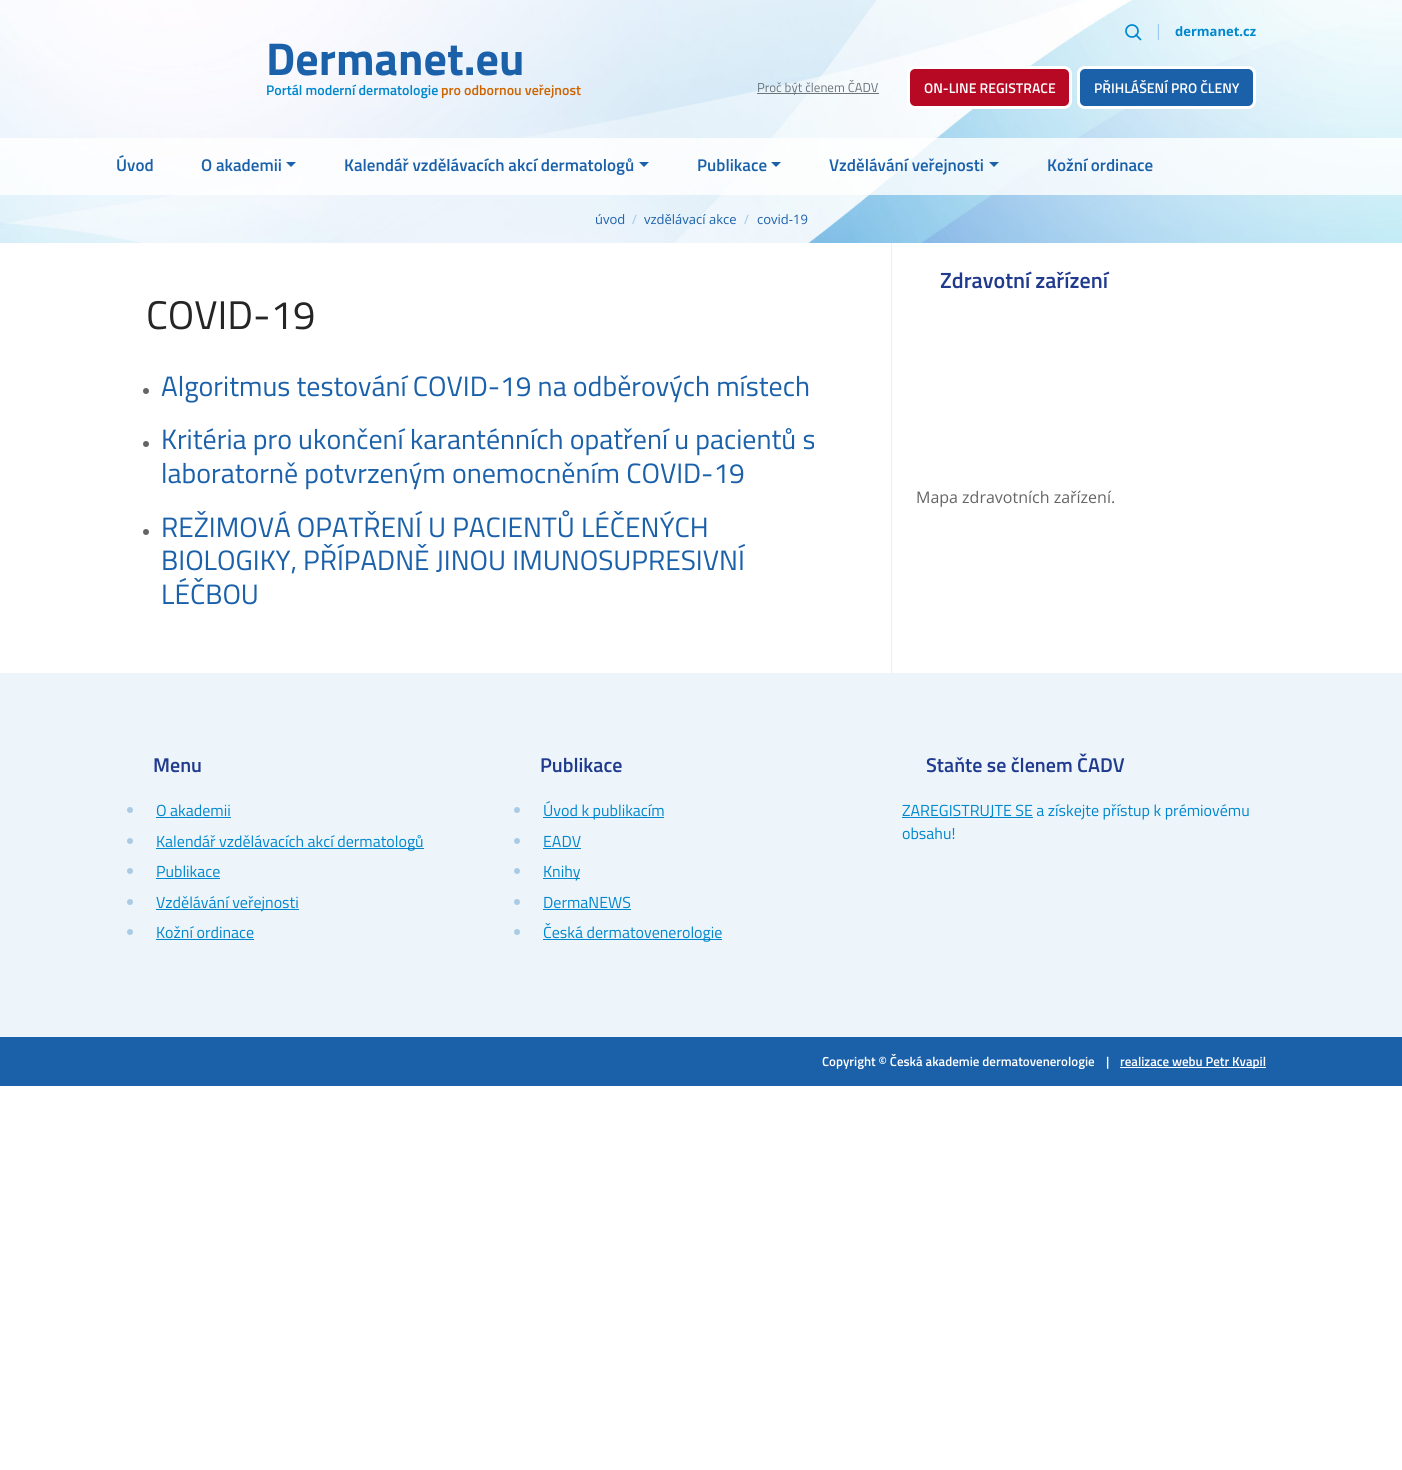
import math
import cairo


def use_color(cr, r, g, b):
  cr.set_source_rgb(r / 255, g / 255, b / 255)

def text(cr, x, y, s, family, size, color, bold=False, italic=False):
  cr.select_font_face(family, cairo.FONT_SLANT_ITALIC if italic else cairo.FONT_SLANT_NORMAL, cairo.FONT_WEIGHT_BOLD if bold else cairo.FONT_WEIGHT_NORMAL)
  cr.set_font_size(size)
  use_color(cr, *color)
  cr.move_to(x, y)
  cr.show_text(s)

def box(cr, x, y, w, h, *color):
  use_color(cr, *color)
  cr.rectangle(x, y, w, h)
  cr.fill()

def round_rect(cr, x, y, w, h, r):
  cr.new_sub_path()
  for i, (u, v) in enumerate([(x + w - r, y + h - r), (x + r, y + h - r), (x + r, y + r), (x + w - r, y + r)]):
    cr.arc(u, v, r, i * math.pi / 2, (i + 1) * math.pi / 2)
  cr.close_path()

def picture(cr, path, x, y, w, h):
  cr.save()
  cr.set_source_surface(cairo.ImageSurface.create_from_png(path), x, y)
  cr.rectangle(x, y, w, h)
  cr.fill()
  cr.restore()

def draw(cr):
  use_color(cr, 255, 255, 255)
  cr.paint()
  picture(cr, "img_01.png", 0, 0, 1402, 243)
  cr.arc(1132, 31, 6, 0, 2 * math.pi)
  use_color(cr, 0, 135, 205)
  cr.set_line_width(1.7)
  cr.stroke()
  cr.new_path()
  cr.move_to(1140.5, 39.5)
  cr.line_to(1136, 35)
  cr.set_line_cap(cairo.LINE_CAP_ROUND)
  cr.set_line_join(cairo.LINE_JOIN_ROUND)
  cr.stroke()
  box(cr, 757, 93, 122, 1, 108, 117, 125)
  use_color(cr, 184, 9, 36)
  round_rect(cr, 908.5, 67.5, 162, 40, 6.5)
  cr.fill_preserve()
  use_color(cr, 255, 255, 255)
  cr.set_line_width(3)
  cr.set_line_cap(cairo.LINE_CAP_BUTT)
  cr.set_line_join(cairo.LINE_JOIN_MITER)
  cr.stroke()
  use_color(cr, 27, 97, 170)
  round_rect(cr, 1078.5, 67.5, 176, 40, 6.5)
  cr.fill_preserve()
  use_color(cr, 255, 255, 255)
  cr.stroke()
  cr.set_source_rgba(1, 1, 1, 0.8)
  cr.rectangle(0, 138, 1402, 57)
  cr.fill()
  use_color(cr, 27, 97, 170)
  cr.new_path()
  cr.move_to(286, 162)
  cr.line_to(296, 162)
  cr.line_to(291, 167)
  cr.close_path()
  cr.fill()
  cr.new_path()
  cr.move_to(639, 162)
  cr.line_to(649, 162)
  cr.line_to(644, 167)
  cr.close_path()
  cr.fill()
  cr.new_path()
  cr.move_to(771, 162)
  cr.line_to(781, 162)
  cr.line_to(776, 167)
  cr.close_path()
  cr.fill()
  cr.new_path()
  cr.move_to(989, 162)
  cr.line_to(999, 162)
  cr.line_to(994, 167)
  cr.close_path()
  cr.fill()
  use_color(cr, 101, 101, 101)
  cr.arc(146, 391, 3, 0, 2 * math.pi)
  cr.fill()
  cr.arc(146, 444, 3, 0, 2 * math.pi)
  cr.fill()
  cr.arc(146, 532, 3, 0, 2 * math.pi)
  cr.fill()
  box(cr, 891, 243, 1, 430, 238, 238, 238)
  box(cr, 0, 673, 1402, 364, 237, 245, 251)
  use_color(cr, 171, 203, 229)
  cr.arc(130, 810, 3, 0, 2 * math.pi)
  cr.fill()
  box(cr, 156, 817, 75, 1, 0, 135, 205)
  use_color(cr, 171, 203, 229)
  cr.arc(130, 841, 3, 0, 2 * math.pi)
  cr.fill()
  box(cr, 156, 848, 268, 1, 0, 135, 205)
  use_color(cr, 171, 203, 229)
  cr.arc(130, 871, 3, 0, 2 * math.pi)
  cr.fill()
  box(cr, 156, 878, 64, 1, 0, 135, 205)
  use_color(cr, 171, 203, 229)
  cr.arc(130, 902, 3, 0, 2 * math.pi)
  cr.fill()
  box(cr, 156, 909, 143, 1, 0, 135, 205)
  use_color(cr, 171, 203, 229)
  cr.arc(130, 932, 3, 0, 2 * math.pi)
  cr.fill()
  box(cr, 156, 939, 98, 1, 0, 135, 205)
  use_color(cr, 171, 203, 229)
  cr.arc(517, 810, 3, 0, 2 * math.pi)
  cr.fill()
  box(cr, 543, 817, 121, 1, 0, 135, 205)
  use_color(cr, 171, 203, 229)
  cr.arc(517, 841, 3, 0, 2 * math.pi)
  cr.fill()
  box(cr, 543, 848, 38, 1, 0, 135, 205)
  use_color(cr, 171, 203, 229)
  cr.arc(517, 871, 3, 0, 2 * math.pi)
  cr.fill()
  box(cr, 543, 878, 37, 1, 0, 135, 205)
  use_color(cr, 171, 203, 229)
  cr.arc(517, 902, 3, 0, 2 * math.pi)
  cr.fill()
  box(cr, 543, 909, 88, 1, 0, 135, 205)
  use_color(cr, 171, 203, 229)
  cr.arc(517, 932, 3, 0, 2 * math.pi)
  cr.fill()
  box(cr, 543, 939, 179, 1, 0, 135, 205)
  box(cr, 902, 817, 131, 1, 0, 135, 205)
  box(cr, 0, 1037, 1402, 49, 27, 97, 170)
  box(cr, 1120, 1067, 146, 1, 255, 255, 255)
  text(cr, 266, 75, "Dermanet.eu", "Titillium Web", 46, (27, 97, 170), bold=True)
  text(cr, 266, 95, "Portál moderní dermatologie", "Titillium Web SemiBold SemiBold", 14, (0, 135, 205))
  text(cr, 441, 95, "pro odbornou veřejnost", "Titillium Web SemiBold SemiBold", 14, (206, 100, 0))
  text(cr, 1154, 36, "|", "Open Sans", 16, (152, 199, 236))
  text(cr, 1175, 36, "dermanet.cz", "Open Sans", 13, (0, 135, 205), bold=True)
  text(cr, 757, 92, "Proč být členem ČADV", "Titillium Web", 13, (108, 117, 125))
  text(cr, 924, 93, "ON-LINE REGISTRACE", "Titillium Web SemiBold SemiBold", 14, (255, 255, 255))
  text(cr, 1094, 93, "PŘIHLÁŠENÍ PRO ČLENY", "Titillium Web SemiBold SemiBold", 14, (255, 255, 255))
  text(cr, 116, 171, "Úvod", "Titillium Web SemiBold SemiBold", 17, (27, 97, 170))
  text(cr, 201, 171, "O akademii", "Titillium Web SemiBold SemiBold", 17, (27, 97, 170))
  text(cr, 344, 171, "Kalendář vzdělávacích akcí dermatologů", "Titillium Web SemiBold SemiBold", 17, (27, 97, 170))
  text(cr, 697, 171, "Publikace", "Titillium Web SemiBold SemiBold", 17, (27, 97, 170))
  text(cr, 829, 171, "Vzdělávání veřejnosti", "Titillium Web SemiBold SemiBold", 17, (27, 97, 170))
  text(cr, 1047, 171, "Kožní ordinace", "Titillium Web SemiBold SemiBold", 17, (27, 97, 170))
  text(cr, 595, 224, "úvod", "Open Sans", 13, (27, 97, 170))
  text(cr, 632, 224, "/", "Open Sans", 13, (152, 199, 236))
  text(cr, 644, 224, "vzdělávací akce", "Open Sans", 13, (27, 97, 170))
  text(cr, 744, 224, "/", "Open Sans", 13, (152, 199, 236))
  text(cr, 757, 224, "covid-19", "Open Sans", 13, (27, 97, 170))
  text(cr, 146, 329, "COVID-19", "Titillium Web", 40, (37, 37, 37))
  text(cr, 161, 396, "Algoritmus testování COVID-19 na odběrových místech", "Titillium Web", 28, (27, 97, 170))
  text(cr, 161, 449, "Kritéria pro ukončení karanténních opatření u pacientů s", "Titillium Web", 28, (27, 97, 170))
  text(cr, 161, 483, "laboratorně potvrzeným onemocněním COVID-19", "Titillium Web", 28, (27, 97, 170))
  text(cr, 161, 537, "REŽIMOVÁ OPATŘENÍ U PACIENTŮ LÉČENÝCH", "Titillium Web", 28, (27, 97, 170))
  text(cr, 161, 570, "BIOLOGIKY, PŘÍPADNĚ JINOU IMUNOSUPRESIVNÍ", "Titillium Web", 28, (27, 97, 170))
  text(cr, 161, 604, "LÉČBOU", "Titillium Web", 28, (27, 97, 170))
  text(cr, 940, 288, "Zdravotní zařízení", "Titillium Web SemiBold SemiBold", 22, (32, 58, 141))
  text(cr, 916, 503, "Mapa zdravotních zařízení.", "Open Sans", 16, (101, 101, 101))
  text(cr, 153, 772, "Menu", "Titillium Web SemiBold SemiBold", 20, (32, 58, 141))
  text(cr, 156, 816, "O akademii", "Titillium Web", 16, (0, 135, 205))
  text(cr, 156, 847, "Kalendář vzdělávacích akcí dermatologů", "Titillium Web", 16, (0, 135, 205))
  text(cr, 156, 877, "Publikace", "Titillium Web", 16, (0, 135, 205))
  text(cr, 156, 908, "Vzdělávání veřejnosti", "Titillium Web", 16, (0, 135, 205))
  text(cr, 156, 938, "Kožní ordinace", "Titillium Web", 16, (0, 135, 205))
  text(cr, 540, 772, "Publikace", "Titillium Web SemiBold SemiBold", 20, (32, 58, 141))
  text(cr, 543, 816, "Úvod k publikacím", "Titillium Web", 16, (0, 135, 205))
  text(cr, 543, 847, "EADV", "Titillium Web", 16, (0, 135, 205))
  text(cr, 543, 877, "Knihy", "Titillium Web", 16, (0, 135, 205))
  text(cr, 543, 908, "DermaNEWS", "Titillium Web", 16, (0, 135, 205))
  text(cr, 543, 938, "Česká dermatovenerologie", "Titillium Web", 16, (0, 135, 205))
  text(cr, 926, 772, "Staňte se členem ČADV", "Titillium Web SemiBold SemiBold", 20, (32, 58, 141))
  text(cr, 902, 816, "ZAREGISTRUJTE SE a získejte přístup k prémiovému", "Titillium Web", 16, (0, 135, 205))
  text(cr, 902, 839, "obsahu!", "Titillium Web", 16, (0, 135, 205))
  text(cr, 822, 1066, "Copyright © Česká akademie dermatovenerologie", "Titillium Web SemiBold SemiBold", 13, (255, 255, 255))
  text(cr, 1106, 1066, "|", "Titillium Web SemiBold SemiBold", 13, (255, 255, 255))
  text(cr, 1120, 1066, "realizace webu Petr Kvapil", "Titillium Web SemiBold SemiBold", 13, (255, 255, 255))


surface = cairo.ImageSurface(cairo.FORMAT_RGB24, 1402, 1470)
cr = cairo.Context(surface)
options = cairo.FontOptions()
options.set_hint_metrics(cairo.HINT_METRICS_OFF)
options.set_hint_style(cairo.HINT_STYLE_NONE)
cr.set_font_options(options)
cr.set_miter_limit(4)
draw(cr)
surface.write_to_png("out.png")
